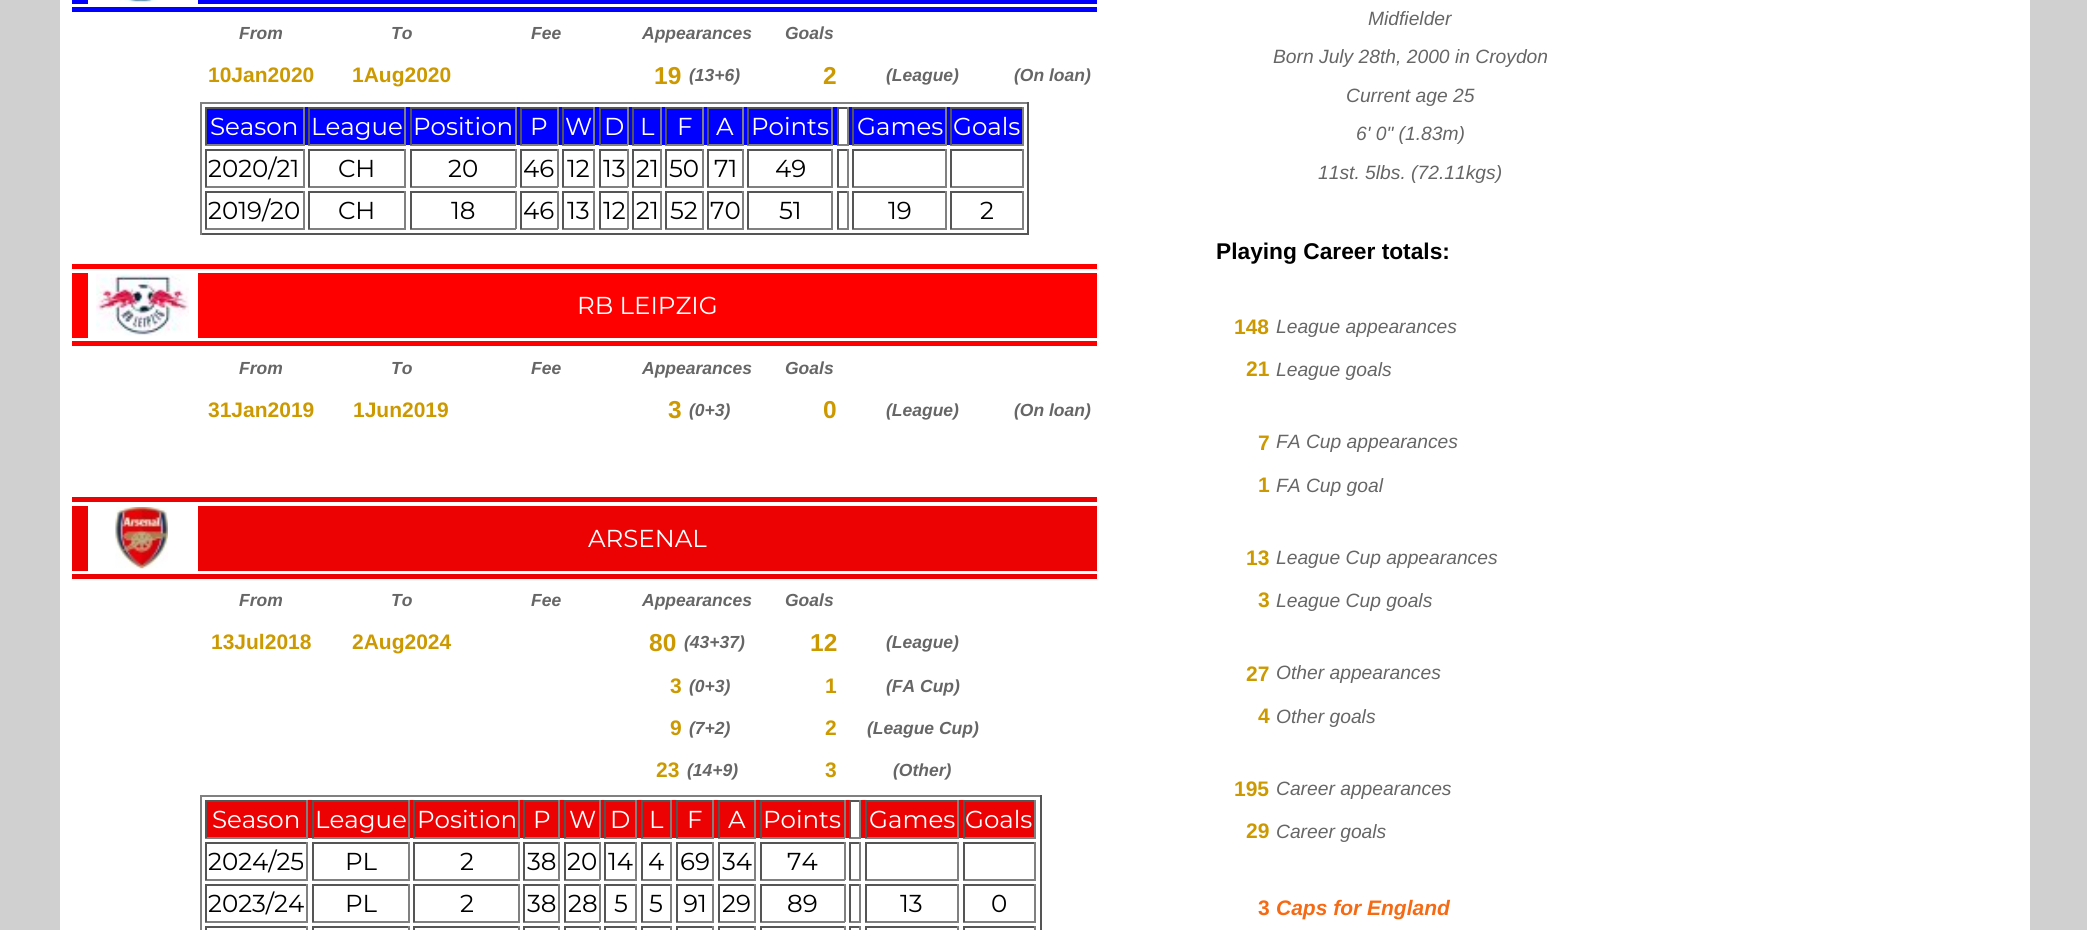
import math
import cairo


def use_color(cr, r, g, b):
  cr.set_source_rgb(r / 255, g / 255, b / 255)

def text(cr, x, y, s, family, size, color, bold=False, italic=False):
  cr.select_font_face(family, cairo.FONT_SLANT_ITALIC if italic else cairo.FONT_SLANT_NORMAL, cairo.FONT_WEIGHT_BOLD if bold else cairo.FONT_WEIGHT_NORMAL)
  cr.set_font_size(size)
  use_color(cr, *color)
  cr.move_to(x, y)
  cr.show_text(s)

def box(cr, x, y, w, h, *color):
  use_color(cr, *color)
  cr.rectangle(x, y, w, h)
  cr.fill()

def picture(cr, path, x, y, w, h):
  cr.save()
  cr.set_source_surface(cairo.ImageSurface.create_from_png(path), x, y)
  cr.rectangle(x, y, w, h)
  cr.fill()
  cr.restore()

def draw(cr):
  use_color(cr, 208, 208, 208)
  cr.paint()
  box(cr, 60, 0, 1970, 930, 255, 255, 255)
  box(cr, 72, 0, 16, 4, 0, 0, 255)
  picture(cr, "img_01.png", 119, 0, 38, 2)
  box(cr, 198, 0, 899, 4, 0, 0, 255)
  box(cr, 72, 7, 1025, 5, 0, 0, 255)
  box(cr, 200, 102, 829, 2, 128, 128, 128)
  box(cr, 1027, 102, 2, 133, 85, 85, 85)
  box(cr, 200, 233, 829, 2, 85, 85, 85)
  box(cr, 200, 102, 2, 133, 128, 128, 128)
  box(cr, 207, 107, 815, 38, 0, 0, 255)
  box(cr, 205, 107, 100, 2, 85, 85, 85)
  box(cr, 303, 107, 2, 38, 128, 128, 128)
  box(cr, 205, 144, 100, 2, 128, 128, 128)
  box(cr, 205, 107, 2, 38, 85, 85, 85)
  box(cr, 308, 107, 98, 2, 85, 85, 85)
  box(cr, 404, 107, 2, 38, 128, 128, 128)
  box(cr, 308, 144, 98, 2, 128, 128, 128)
  box(cr, 308, 107, 2, 38, 85, 85, 85)
  box(cr, 410, 107, 106, 2, 85, 85, 85)
  box(cr, 515, 107, 2, 38, 128, 128, 128)
  box(cr, 410, 144, 106, 2, 128, 128, 128)
  box(cr, 410, 107, 2, 38, 85, 85, 85)
  box(cr, 520, 107, 38, 2, 85, 85, 85)
  box(cr, 557, 107, 2, 38, 128, 128, 128)
  box(cr, 520, 144, 38, 2, 128, 128, 128)
  box(cr, 520, 107, 2, 38, 85, 85, 85)
  box(cr, 562, 107, 33, 2, 85, 85, 85)
  box(cr, 593, 107, 2, 38, 128, 128, 128)
  box(cr, 562, 144, 33, 2, 128, 128, 128)
  box(cr, 562, 107, 2, 38, 85, 85, 85)
  box(cr, 599, 107, 29, 2, 85, 85, 85)
  box(cr, 627, 107, 2, 38, 128, 128, 128)
  box(cr, 599, 144, 29, 2, 128, 128, 128)
  box(cr, 599, 107, 2, 38, 85, 85, 85)
  box(cr, 632, 107, 30, 2, 85, 85, 85)
  box(cr, 660, 107, 2, 38, 128, 128, 128)
  box(cr, 632, 144, 30, 2, 128, 128, 128)
  box(cr, 632, 107, 2, 38, 85, 85, 85)
  box(cr, 665, 107, 39, 2, 85, 85, 85)
  box(cr, 702, 107, 2, 38, 128, 128, 128)
  box(cr, 665, 144, 39, 2, 128, 128, 128)
  box(cr, 665, 107, 2, 38, 85, 85, 85)
  box(cr, 707, 107, 37, 2, 85, 85, 85)
  box(cr, 742, 107, 2, 38, 128, 128, 128)
  box(cr, 707, 144, 37, 2, 128, 128, 128)
  box(cr, 707, 107, 2, 38, 85, 85, 85)
  box(cr, 747, 107, 86, 2, 85, 85, 85)
  box(cr, 831, 107, 2, 38, 128, 128, 128)
  box(cr, 747, 144, 86, 2, 128, 128, 128)
  box(cr, 747, 107, 2, 38, 85, 85, 85)
  box(cr, 839, 109, 8, 35, 255, 255, 255)
  box(cr, 837, 107, 12, 2, 85, 85, 85)
  box(cr, 847, 107, 2, 38, 128, 128, 128)
  box(cr, 837, 144, 12, 2, 128, 128, 128)
  box(cr, 837, 107, 2, 38, 85, 85, 85)
  box(cr, 852, 107, 95, 2, 85, 85, 85)
  box(cr, 945, 107, 2, 38, 128, 128, 128)
  box(cr, 852, 144, 95, 2, 128, 128, 128)
  box(cr, 852, 107, 2, 38, 85, 85, 85)
  box(cr, 950, 107, 74, 2, 85, 85, 85)
  box(cr, 1022, 107, 2, 38, 128, 128, 128)
  box(cr, 950, 144, 74, 2, 128, 128, 128)
  box(cr, 950, 107, 2, 38, 85, 85, 85)
  box(cr, 205, 149, 100, 2, 85, 85, 85)
  box(cr, 303, 149, 2, 38, 128, 128, 128)
  box(cr, 205, 186, 100, 2, 128, 128, 128)
  box(cr, 205, 149, 2, 38, 85, 85, 85)
  box(cr, 308, 149, 98, 2, 85, 85, 85)
  box(cr, 404, 149, 2, 38, 128, 128, 128)
  box(cr, 308, 186, 98, 2, 128, 128, 128)
  box(cr, 308, 149, 2, 38, 85, 85, 85)
  box(cr, 410, 149, 106, 2, 85, 85, 85)
  box(cr, 515, 149, 2, 38, 128, 128, 128)
  box(cr, 410, 186, 106, 2, 128, 128, 128)
  box(cr, 410, 149, 2, 38, 85, 85, 85)
  box(cr, 520, 149, 38, 2, 85, 85, 85)
  box(cr, 557, 149, 2, 38, 128, 128, 128)
  box(cr, 520, 186, 38, 2, 128, 128, 128)
  box(cr, 520, 149, 2, 38, 85, 85, 85)
  box(cr, 562, 149, 33, 2, 85, 85, 85)
  box(cr, 593, 149, 2, 38, 128, 128, 128)
  box(cr, 562, 186, 33, 2, 128, 128, 128)
  box(cr, 562, 149, 2, 38, 85, 85, 85)
  box(cr, 599, 149, 29, 2, 85, 85, 85)
  box(cr, 627, 149, 2, 38, 128, 128, 128)
  box(cr, 599, 186, 29, 2, 128, 128, 128)
  box(cr, 599, 149, 2, 38, 85, 85, 85)
  box(cr, 632, 149, 30, 2, 85, 85, 85)
  box(cr, 660, 149, 2, 38, 128, 128, 128)
  box(cr, 632, 186, 30, 2, 128, 128, 128)
  box(cr, 632, 149, 2, 38, 85, 85, 85)
  box(cr, 665, 149, 39, 2, 85, 85, 85)
  box(cr, 702, 149, 2, 38, 128, 128, 128)
  box(cr, 665, 186, 39, 2, 128, 128, 128)
  box(cr, 665, 149, 2, 38, 85, 85, 85)
  box(cr, 707, 149, 37, 2, 85, 85, 85)
  box(cr, 742, 149, 2, 38, 128, 128, 128)
  box(cr, 707, 186, 37, 2, 128, 128, 128)
  box(cr, 707, 149, 2, 38, 85, 85, 85)
  box(cr, 747, 149, 86, 2, 85, 85, 85)
  box(cr, 831, 149, 2, 38, 128, 128, 128)
  box(cr, 747, 186, 86, 2, 128, 128, 128)
  box(cr, 747, 149, 2, 38, 85, 85, 85)
  box(cr, 837, 149, 12, 2, 85, 85, 85)
  box(cr, 847, 149, 2, 38, 128, 128, 128)
  box(cr, 837, 186, 12, 2, 128, 128, 128)
  box(cr, 837, 149, 2, 38, 85, 85, 85)
  box(cr, 852, 149, 95, 2, 85, 85, 85)
  box(cr, 945, 149, 2, 38, 128, 128, 128)
  box(cr, 852, 186, 95, 2, 128, 128, 128)
  box(cr, 852, 149, 2, 38, 85, 85, 85)
  box(cr, 950, 149, 74, 2, 85, 85, 85)
  box(cr, 1022, 149, 2, 38, 128, 128, 128)
  box(cr, 950, 186, 74, 2, 128, 128, 128)
  box(cr, 950, 149, 2, 38, 85, 85, 85)
  box(cr, 205, 191, 100, 2, 85, 85, 85)
  box(cr, 303, 191, 2, 38, 128, 128, 128)
  box(cr, 205, 228, 100, 2, 128, 128, 128)
  box(cr, 205, 191, 2, 38, 85, 85, 85)
  box(cr, 308, 191, 98, 2, 85, 85, 85)
  box(cr, 404, 191, 2, 38, 128, 128, 128)
  box(cr, 308, 228, 98, 2, 128, 128, 128)
  box(cr, 308, 191, 2, 38, 85, 85, 85)
  box(cr, 410, 191, 106, 2, 85, 85, 85)
  box(cr, 515, 191, 2, 38, 128, 128, 128)
  box(cr, 410, 228, 106, 2, 128, 128, 128)
  box(cr, 410, 191, 2, 38, 85, 85, 85)
  box(cr, 520, 191, 38, 2, 85, 85, 85)
  box(cr, 557, 191, 2, 38, 128, 128, 128)
  box(cr, 520, 228, 38, 2, 128, 128, 128)
  box(cr, 520, 191, 2, 38, 85, 85, 85)
  box(cr, 562, 191, 33, 2, 85, 85, 85)
  box(cr, 593, 191, 2, 38, 128, 128, 128)
  box(cr, 562, 228, 33, 2, 128, 128, 128)
  box(cr, 562, 191, 2, 38, 85, 85, 85)
  box(cr, 599, 191, 29, 2, 85, 85, 85)
  box(cr, 627, 191, 2, 38, 128, 128, 128)
  box(cr, 599, 228, 29, 2, 128, 128, 128)
  box(cr, 599, 191, 2, 38, 85, 85, 85)
  box(cr, 632, 191, 30, 2, 85, 85, 85)
  box(cr, 660, 191, 2, 38, 128, 128, 128)
  box(cr, 632, 228, 30, 2, 128, 128, 128)
  box(cr, 632, 191, 2, 38, 85, 85, 85)
  box(cr, 665, 191, 39, 2, 85, 85, 85)
  box(cr, 702, 191, 2, 38, 128, 128, 128)
  box(cr, 665, 228, 39, 2, 128, 128, 128)
  box(cr, 665, 191, 2, 38, 85, 85, 85)
  box(cr, 707, 191, 37, 2, 85, 85, 85)
  box(cr, 742, 191, 2, 38, 128, 128, 128)
  box(cr, 707, 228, 37, 2, 128, 128, 128)
  box(cr, 707, 191, 2, 38, 85, 85, 85)
  box(cr, 747, 191, 86, 2, 85, 85, 85)
  box(cr, 831, 191, 2, 38, 128, 128, 128)
  box(cr, 747, 228, 86, 2, 128, 128, 128)
  box(cr, 747, 191, 2, 38, 85, 85, 85)
  box(cr, 837, 191, 12, 2, 85, 85, 85)
  box(cr, 847, 191, 2, 38, 128, 128, 128)
  box(cr, 837, 228, 12, 2, 128, 128, 128)
  box(cr, 837, 191, 2, 38, 85, 85, 85)
  box(cr, 852, 191, 95, 2, 85, 85, 85)
  box(cr, 945, 191, 2, 38, 128, 128, 128)
  box(cr, 852, 228, 95, 2, 128, 128, 128)
  box(cr, 852, 191, 2, 38, 85, 85, 85)
  box(cr, 950, 191, 74, 2, 85, 85, 85)
  box(cr, 1022, 191, 2, 38, 128, 128, 128)
  box(cr, 950, 228, 74, 2, 128, 128, 128)
  box(cr, 950, 191, 2, 38, 85, 85, 85)
  box(cr, 72, 264, 1025, 5, 255, 0, 0)
  box(cr, 72, 273, 16, 65, 255, 0, 0)
  picture(cr, "img_02.png", 96, 274, 93, 62)
  box(cr, 198, 273, 899, 65, 255, 0, 0)
  box(cr, 72, 341, 1025, 5, 255, 0, 0)
  box(cr, 72, 497, 1025, 5, 236, 2, 3)
  box(cr, 72, 506, 16, 65, 236, 2, 3)
  picture(cr, "img_03.png", 115, 507, 53, 62)
  box(cr, 198, 506, 899, 65, 236, 2, 3)
  box(cr, 72, 574, 1025, 5, 236, 2, 3)
  box(cr, 200, 795, 841, 2, 128, 128, 128)
  box(cr, 1040, 795, 2, 135, 85, 85, 85)
  box(cr, 200, 795, 2, 135, 128, 128, 128)
  box(cr, 207, 800, 827, 38, 236, 2, 3)
  box(cr, 205, 800, 103, 2, 85, 85, 85)
  box(cr, 306, 800, 2, 38, 128, 128, 128)
  box(cr, 205, 837, 103, 2, 128, 128, 128)
  box(cr, 205, 800, 2, 38, 85, 85, 85)
  box(cr, 312, 800, 98, 2, 85, 85, 85)
  box(cr, 408, 800, 2, 38, 128, 128, 128)
  box(cr, 312, 837, 98, 2, 128, 128, 128)
  box(cr, 312, 800, 2, 38, 85, 85, 85)
  box(cr, 413, 800, 107, 2, 85, 85, 85)
  box(cr, 518, 800, 2, 38, 128, 128, 128)
  box(cr, 413, 837, 107, 2, 128, 128, 128)
  box(cr, 413, 800, 2, 38, 85, 85, 85)
  box(cr, 523, 800, 37, 2, 85, 85, 85)
  box(cr, 558, 800, 2, 38, 128, 128, 128)
  box(cr, 523, 837, 37, 2, 128, 128, 128)
  box(cr, 523, 800, 2, 38, 85, 85, 85)
  box(cr, 564, 800, 36, 2, 85, 85, 85)
  box(cr, 599, 800, 2, 38, 128, 128, 128)
  box(cr, 564, 837, 36, 2, 128, 128, 128)
  box(cr, 564, 800, 2, 38, 85, 85, 85)
  box(cr, 604, 800, 33, 2, 85, 85, 85)
  box(cr, 635, 800, 2, 38, 128, 128, 128)
  box(cr, 604, 837, 33, 2, 128, 128, 128)
  box(cr, 604, 800, 2, 38, 85, 85, 85)
  box(cr, 641, 800, 31, 2, 85, 85, 85)
  box(cr, 670, 800, 2, 38, 128, 128, 128)
  box(cr, 641, 837, 31, 2, 128, 128, 128)
  box(cr, 641, 800, 2, 38, 85, 85, 85)
  box(cr, 676, 800, 38, 2, 85, 85, 85)
  box(cr, 712, 800, 2, 38, 128, 128, 128)
  box(cr, 676, 837, 38, 2, 128, 128, 128)
  box(cr, 676, 800, 2, 38, 85, 85, 85)
  box(cr, 718, 800, 38, 2, 85, 85, 85)
  box(cr, 754, 800, 2, 38, 128, 128, 128)
  box(cr, 718, 837, 38, 2, 128, 128, 128)
  box(cr, 718, 800, 2, 38, 85, 85, 85)
  box(cr, 760, 800, 85, 2, 85, 85, 85)
  box(cr, 844, 800, 2, 38, 128, 128, 128)
  box(cr, 760, 837, 85, 2, 128, 128, 128)
  box(cr, 760, 800, 2, 38, 85, 85, 85)
  box(cr, 851, 802, 8, 35, 255, 255, 255)
  box(cr, 849, 800, 12, 2, 85, 85, 85)
  box(cr, 859, 800, 2, 38, 128, 128, 128)
  box(cr, 849, 837, 12, 2, 128, 128, 128)
  box(cr, 849, 800, 2, 38, 85, 85, 85)
  box(cr, 865, 800, 94, 2, 85, 85, 85)
  box(cr, 957, 800, 2, 38, 128, 128, 128)
  box(cr, 865, 837, 94, 2, 128, 128, 128)
  box(cr, 865, 800, 2, 38, 85, 85, 85)
  box(cr, 963, 800, 73, 2, 85, 85, 85)
  box(cr, 1034, 800, 2, 38, 128, 128, 128)
  box(cr, 963, 837, 73, 2, 128, 128, 128)
  box(cr, 963, 800, 2, 38, 85, 85, 85)
  box(cr, 205, 842, 103, 2, 85, 85, 85)
  box(cr, 306, 842, 2, 38, 128, 128, 128)
  box(cr, 205, 879, 103, 2, 128, 128, 128)
  box(cr, 205, 842, 2, 38, 85, 85, 85)
  box(cr, 312, 842, 98, 2, 85, 85, 85)
  box(cr, 408, 842, 2, 38, 128, 128, 128)
  box(cr, 312, 879, 98, 2, 128, 128, 128)
  box(cr, 312, 842, 2, 38, 85, 85, 85)
  box(cr, 413, 842, 107, 2, 85, 85, 85)
  box(cr, 518, 842, 2, 38, 128, 128, 128)
  box(cr, 413, 879, 107, 2, 128, 128, 128)
  box(cr, 413, 842, 2, 38, 85, 85, 85)
  box(cr, 523, 842, 37, 2, 85, 85, 85)
  box(cr, 558, 842, 2, 38, 128, 128, 128)
  box(cr, 523, 879, 37, 2, 128, 128, 128)
  box(cr, 523, 842, 2, 38, 85, 85, 85)
  box(cr, 564, 842, 36, 2, 85, 85, 85)
  box(cr, 599, 842, 2, 38, 128, 128, 128)
  box(cr, 564, 879, 36, 2, 128, 128, 128)
  box(cr, 564, 842, 2, 38, 85, 85, 85)
  box(cr, 604, 842, 33, 2, 85, 85, 85)
  box(cr, 635, 842, 2, 38, 128, 128, 128)
  box(cr, 604, 879, 33, 2, 128, 128, 128)
  box(cr, 604, 842, 2, 38, 85, 85, 85)
  box(cr, 641, 842, 31, 2, 85, 85, 85)
  box(cr, 670, 842, 2, 38, 128, 128, 128)
  box(cr, 641, 879, 31, 2, 128, 128, 128)
  box(cr, 641, 842, 2, 38, 85, 85, 85)
  box(cr, 676, 842, 38, 2, 85, 85, 85)
  box(cr, 712, 842, 2, 38, 128, 128, 128)
  box(cr, 676, 879, 38, 2, 128, 128, 128)
  box(cr, 676, 842, 2, 38, 85, 85, 85)
  box(cr, 718, 842, 38, 2, 85, 85, 85)
  box(cr, 754, 842, 2, 38, 128, 128, 128)
  box(cr, 718, 879, 38, 2, 128, 128, 128)
  box(cr, 718, 842, 2, 38, 85, 85, 85)
  box(cr, 760, 842, 85, 2, 85, 85, 85)
  box(cr, 844, 842, 2, 38, 128, 128, 128)
  box(cr, 760, 879, 85, 2, 128, 128, 128)
  box(cr, 760, 842, 2, 38, 85, 85, 85)
  box(cr, 849, 842, 12, 2, 85, 85, 85)
  box(cr, 859, 842, 2, 38, 128, 128, 128)
  box(cr, 849, 879, 12, 2, 128, 128, 128)
  box(cr, 849, 842, 2, 38, 85, 85, 85)
  box(cr, 865, 842, 94, 2, 85, 85, 85)
  box(cr, 957, 842, 2, 38, 128, 128, 128)
  box(cr, 865, 879, 94, 2, 128, 128, 128)
  box(cr, 865, 842, 2, 38, 85, 85, 85)
  box(cr, 963, 842, 73, 2, 85, 85, 85)
  box(cr, 1034, 842, 2, 38, 128, 128, 128)
  box(cr, 963, 879, 73, 2, 128, 128, 128)
  box(cr, 963, 842, 2, 38, 85, 85, 85)
  box(cr, 205, 884, 103, 2, 85, 85, 85)
  box(cr, 306, 884, 2, 38, 128, 128, 128)
  box(cr, 205, 921, 103, 2, 128, 128, 128)
  box(cr, 205, 884, 2, 38, 85, 85, 85)
  box(cr, 312, 884, 98, 2, 85, 85, 85)
  box(cr, 408, 884, 2, 38, 128, 128, 128)
  box(cr, 312, 921, 98, 2, 128, 128, 128)
  box(cr, 312, 884, 2, 38, 85, 85, 85)
  box(cr, 413, 884, 107, 2, 85, 85, 85)
  box(cr, 518, 884, 2, 38, 128, 128, 128)
  box(cr, 413, 921, 107, 2, 128, 128, 128)
  box(cr, 413, 884, 2, 38, 85, 85, 85)
  box(cr, 523, 884, 37, 2, 85, 85, 85)
  box(cr, 558, 884, 2, 38, 128, 128, 128)
  box(cr, 523, 921, 37, 2, 128, 128, 128)
  box(cr, 523, 884, 2, 38, 85, 85, 85)
  box(cr, 564, 884, 36, 2, 85, 85, 85)
  box(cr, 599, 884, 2, 38, 128, 128, 128)
  box(cr, 564, 921, 36, 2, 128, 128, 128)
  box(cr, 564, 884, 2, 38, 85, 85, 85)
  box(cr, 604, 884, 33, 2, 85, 85, 85)
  box(cr, 635, 884, 2, 38, 128, 128, 128)
  box(cr, 604, 921, 33, 2, 128, 128, 128)
  box(cr, 604, 884, 2, 38, 85, 85, 85)
  box(cr, 641, 884, 31, 2, 85, 85, 85)
  box(cr, 670, 884, 2, 38, 128, 128, 128)
  box(cr, 641, 921, 31, 2, 128, 128, 128)
  box(cr, 641, 884, 2, 38, 85, 85, 85)
  box(cr, 676, 884, 38, 2, 85, 85, 85)
  box(cr, 712, 884, 2, 38, 128, 128, 128)
  box(cr, 676, 921, 38, 2, 128, 128, 128)
  box(cr, 676, 884, 2, 38, 85, 85, 85)
  box(cr, 718, 884, 38, 2, 85, 85, 85)
  box(cr, 754, 884, 2, 38, 128, 128, 128)
  box(cr, 718, 921, 38, 2, 128, 128, 128)
  box(cr, 718, 884, 2, 38, 85, 85, 85)
  box(cr, 760, 884, 85, 2, 85, 85, 85)
  box(cr, 844, 884, 2, 38, 128, 128, 128)
  box(cr, 760, 921, 85, 2, 128, 128, 128)
  box(cr, 760, 884, 2, 38, 85, 85, 85)
  box(cr, 849, 884, 12, 2, 85, 85, 85)
  box(cr, 859, 884, 2, 38, 128, 128, 128)
  box(cr, 849, 921, 12, 2, 128, 128, 128)
  box(cr, 849, 884, 2, 38, 85, 85, 85)
  box(cr, 865, 884, 94, 2, 85, 85, 85)
  box(cr, 957, 884, 2, 38, 128, 128, 128)
  box(cr, 865, 921, 94, 2, 128, 128, 128)
  box(cr, 865, 884, 2, 38, 85, 85, 85)
  box(cr, 963, 884, 73, 2, 85, 85, 85)
  box(cr, 1034, 884, 2, 38, 128, 128, 128)
  box(cr, 963, 921, 73, 2, 128, 128, 128)
  box(cr, 963, 884, 2, 38, 85, 85, 85)
  box(cr, 205, 926, 103, 2, 85, 85, 85)
  box(cr, 306, 926, 2, 4, 128, 128, 128)
  box(cr, 205, 926, 2, 4, 85, 85, 85)
  box(cr, 312, 926, 98, 2, 85, 85, 85)
  box(cr, 408, 926, 2, 4, 128, 128, 128)
  box(cr, 312, 926, 2, 4, 85, 85, 85)
  box(cr, 413, 926, 107, 2, 85, 85, 85)
  box(cr, 518, 926, 2, 4, 128, 128, 128)
  box(cr, 413, 926, 2, 4, 85, 85, 85)
  box(cr, 523, 926, 37, 2, 85, 85, 85)
  box(cr, 558, 926, 2, 4, 128, 128, 128)
  box(cr, 523, 926, 2, 4, 85, 85, 85)
  box(cr, 564, 926, 36, 2, 85, 85, 85)
  box(cr, 599, 926, 2, 4, 128, 128, 128)
  box(cr, 564, 926, 2, 4, 85, 85, 85)
  box(cr, 604, 926, 33, 2, 85, 85, 85)
  box(cr, 635, 926, 2, 4, 128, 128, 128)
  box(cr, 604, 926, 2, 4, 85, 85, 85)
  box(cr, 641, 926, 31, 2, 85, 85, 85)
  box(cr, 670, 926, 2, 4, 128, 128, 128)
  box(cr, 641, 926, 2, 4, 85, 85, 85)
  box(cr, 676, 926, 38, 2, 85, 85, 85)
  box(cr, 712, 926, 2, 4, 128, 128, 128)
  box(cr, 676, 926, 2, 4, 85, 85, 85)
  box(cr, 718, 926, 38, 2, 85, 85, 85)
  box(cr, 754, 926, 2, 4, 128, 128, 128)
  box(cr, 718, 926, 2, 4, 85, 85, 85)
  box(cr, 760, 926, 85, 2, 85, 85, 85)
  box(cr, 844, 926, 2, 4, 128, 128, 128)
  box(cr, 760, 926, 2, 4, 85, 85, 85)
  box(cr, 849, 926, 12, 2, 85, 85, 85)
  box(cr, 859, 926, 2, 4, 128, 128, 128)
  box(cr, 849, 926, 2, 4, 85, 85, 85)
  box(cr, 865, 926, 94, 2, 85, 85, 85)
  box(cr, 957, 926, 2, 4, 128, 128, 128)
  box(cr, 865, 926, 2, 4, 85, 85, 85)
  box(cr, 963, 926, 73, 2, 85, 85, 85)
  box(cr, 1034, 926, 2, 4, 128, 128, 128)
  box(cr, 963, 926, 2, 4, 85, 85, 85)
  text(cr, 239, 39, "From", "Liberation Sans", 17.5, (102, 102, 102), bold=True, italic=True)
  text(cr, 391, 39, "To", "Liberation Sans", 17.5, (102, 102, 102), bold=True, italic=True)
  text(cr, 531, 39, "Fee", "Liberation Sans", 17.5, (102, 102, 102), bold=True, italic=True)
  text(cr, 642, 39, "Appearances", "Liberation Sans", 17.5, (102, 102, 102), bold=True, italic=True)
  text(cr, 785, 39, "Goals", "Liberation Sans", 17.5, (102, 102, 102), bold=True, italic=True)
  text(cr, 208, 82, "10Jan2020", "Liberation Sans", 21, (204, 153, 0), bold=True)
  text(cr, 352, 82, "1Aug2020", "Liberation Sans", 21, (204, 153, 0), bold=True)
  text(cr, 654, 84, "19", "Liberation Sans", 24.5, (204, 153, 0), bold=True)
  text(cr, 689, 81, "(13+6)", "Liberation Sans", 17.5, (102, 102, 102), bold=True, italic=True)
  text(cr, 823, 84, "2", "Liberation Sans", 24.5, (204, 153, 0), bold=True)
  text(cr, 886, 81, "(League)", "Liberation Sans", 17.5, (102, 102, 102), bold=True, italic=True)
  text(cr, 1014, 81, "(On loan)", "Liberation Sans", 17.5, (102, 102, 102), bold=True, italic=True)
  text(cr, 210, 135, "Season", "Montserrat Thin", 24.5, (255, 255, 255))
  text(cr, 311, 135, "League", "Montserrat Thin", 24.5, (255, 255, 255))
  text(cr, 413, 135, "Position", "Montserrat Thin", 24.5, (255, 255, 255))
  text(cr, 530, 135, "P", "Montserrat Thin", 24.5, (255, 255, 255))
  text(cr, 565, 135, "W", "Montserrat Thin", 24.5, (255, 255, 255))
  text(cr, 604, 135, "D", "Montserrat Thin", 24.5, (255, 255, 255))
  text(cr, 640, 135, "L", "Montserrat Thin", 24.5, (255, 255, 255))
  text(cr, 677, 135, "F", "Montserrat Thin", 24.5, (255, 255, 255))
  text(cr, 716, 135, "A", "Montserrat Thin", 24.5, (255, 255, 255))
  text(cr, 751, 135, "Points", "Montserrat Thin", 24.5, (255, 255, 255))
  text(cr, 857, 135, "Games", "Montserrat Thin", 24.5, (255, 255, 255))
  text(cr, 953, 135, "Goals", "Montserrat Thin", 24.5, (255, 255, 255))
  text(cr, 208, 177, "2020/21", "Montserrat Thin", 24.5, (0, 0, 0))
  text(cr, 338, 177, "CH", "Montserrat Thin", 24.5, (0, 0, 0))
  text(cr, 448, 177, "20", "Montserrat Thin", 24.5, (0, 0, 0))
  text(cr, 523, 177, "46", "Montserrat Thin", 24.5, (0, 0, 0))
  text(cr, 567, 177, "12", "Montserrat Thin", 24.5, (0, 0, 0))
  text(cr, 603, 177, "13", "Montserrat Thin", 24.5, (0, 0, 0))
  text(cr, 636, 177, "21", "Montserrat Thin", 24.5, (0, 0, 0))
  text(cr, 669, 177, "50", "Montserrat Thin", 24.5, (0, 0, 0))
  text(cr, 714, 177, "71", "Montserrat Thin", 24.5, (0, 0, 0))
  text(cr, 775, 177, "49", "Montserrat Thin", 24.5, (0, 0, 0))
  text(cr, 208, 219, "2019/20", "Montserrat Thin", 24.5, (0, 0, 0))
  text(cr, 338, 219, "CH", "Montserrat Thin", 24.5, (0, 0, 0))
  text(cr, 451, 219, "18", "Montserrat Thin", 24.5, (0, 0, 0))
  text(cr, 523, 219, "46", "Montserrat Thin", 24.5, (0, 0, 0))
  text(cr, 567, 219, "13", "Montserrat Thin", 24.5, (0, 0, 0))
  text(cr, 603, 219, "12", "Montserrat Thin", 24.5, (0, 0, 0))
  text(cr, 636, 219, "21", "Montserrat Thin", 24.5, (0, 0, 0))
  text(cr, 670, 219, "52", "Montserrat Thin", 24.5, (0, 0, 0))
  text(cr, 710, 219, "70", "Montserrat Thin", 24.5, (0, 0, 0))
  text(cr, 779, 219, "51", "Montserrat Thin", 24.5, (0, 0, 0))
  text(cr, 888, 219, "19", "Montserrat Thin", 24.5, (0, 0, 0))
  text(cr, 980, 219, "2", "Montserrat Thin", 24.5, (0, 0, 0))
  text(cr, 577, 314, "RB LEIPZIG", "Montserrat Thin", 24.5, (255, 255, 255))
  text(cr, 239, 374, "From", "Liberation Sans", 17.5, (102, 102, 102), bold=True, italic=True)
  text(cr, 391, 374, "To", "Liberation Sans", 17.5, (102, 102, 102), bold=True, italic=True)
  text(cr, 531, 374, "Fee", "Liberation Sans", 17.5, (102, 102, 102), bold=True, italic=True)
  text(cr, 642, 374, "Appearances", "Liberation Sans", 17.5, (102, 102, 102), bold=True, italic=True)
  text(cr, 785, 374, "Goals", "Liberation Sans", 17.5, (102, 102, 102), bold=True, italic=True)
  text(cr, 208, 417, "31Jan2019", "Liberation Sans", 21, (204, 153, 0), bold=True)
  text(cr, 353, 417, "1Jun2019", "Liberation Sans", 21, (204, 153, 0), bold=True)
  text(cr, 668, 418, "3", "Liberation Sans", 24.5, (204, 153, 0), bold=True)
  text(cr, 689, 416, "(0+3)", "Liberation Sans", 17.5, (102, 102, 102), bold=True, italic=True)
  text(cr, 823, 418, "0", "Liberation Sans", 24.5, (204, 153, 0), bold=True)
  text(cr, 886, 416, "(League)", "Liberation Sans", 17.5, (102, 102, 102), bold=True, italic=True)
  text(cr, 1014, 416, "(On loan)", "Liberation Sans", 17.5, (102, 102, 102), bold=True, italic=True)
  text(cr, 588, 547, "ARSENAL", "Montserrat Thin", 24.5, (255, 255, 255))
  text(cr, 239, 606, "From", "Liberation Sans", 17.5, (102, 102, 102), bold=True, italic=True)
  text(cr, 391, 606, "To", "Liberation Sans", 17.5, (102, 102, 102), bold=True, italic=True)
  text(cr, 531, 606, "Fee", "Liberation Sans", 17.5, (102, 102, 102), bold=True, italic=True)
  text(cr, 642, 606, "Appearances", "Liberation Sans", 17.5, (102, 102, 102), bold=True, italic=True)
  text(cr, 785, 606, "Goals", "Liberation Sans", 17.5, (102, 102, 102), bold=True, italic=True)
  text(cr, 211, 649, "13Jul2018", "Liberation Sans", 21, (204, 153, 0), bold=True)
  text(cr, 352, 649, "2Aug2024", "Liberation Sans", 21, (204, 153, 0), bold=True)
  text(cr, 649, 651, "80", "Liberation Sans", 24.5, (204, 153, 0), bold=True)
  text(cr, 684, 648, "(43+37)", "Liberation Sans", 17.5, (102, 102, 102), bold=True, italic=True)
  text(cr, 810, 651, "12", "Liberation Sans", 24.5, (204, 153, 0), bold=True)
  text(cr, 886, 648, "(League)", "Liberation Sans", 17.5, (102, 102, 102), bold=True, italic=True)
  text(cr, 670, 693, "3", "Liberation Sans", 21, (204, 153, 0), bold=True)
  text(cr, 689, 692, "(0+3)", "Liberation Sans", 17.5, (102, 102, 102), bold=True, italic=True)
  text(cr, 825, 693, "1", "Liberation Sans", 21, (204, 153, 0), bold=True)
  text(cr, 886, 692, "(FA Cup)", "Liberation Sans", 17.5, (102, 102, 102), bold=True, italic=True)
  text(cr, 670, 735, "9", "Liberation Sans", 21, (204, 153, 0), bold=True)
  text(cr, 689, 734, "(7+2)", "Liberation Sans", 17.5, (102, 102, 102), bold=True, italic=True)
  text(cr, 825, 735, "2", "Liberation Sans", 21, (204, 153, 0), bold=True)
  text(cr, 867, 734, "(League Cup)", "Liberation Sans", 17.5, (102, 102, 102), bold=True, italic=True)
  text(cr, 656, 777, "23", "Liberation Sans", 21, (204, 153, 0), bold=True)
  text(cr, 687, 776, "(14+9)", "Liberation Sans", 17.5, (102, 102, 102), bold=True, italic=True)
  text(cr, 825, 777, "3", "Liberation Sans", 21, (204, 153, 0), bold=True)
  text(cr, 893, 776, "(Other)", "Liberation Sans", 17.5, (102, 102, 102), bold=True, italic=True)
  text(cr, 212, 828, "Season", "Montserrat Thin", 24.5, (255, 255, 255))
  text(cr, 315, 828, "League", "Montserrat Thin", 24.5, (255, 255, 255))
  text(cr, 417, 828, "Position", "Montserrat Thin", 24.5, (255, 255, 255))
  text(cr, 533, 828, "P", "Montserrat Thin", 24.5, (255, 255, 255))
  text(cr, 569, 828, "W", "Montserrat Thin", 24.5, (255, 255, 255))
  text(cr, 610, 828, "D", "Montserrat Thin", 24.5, (255, 255, 255))
  text(cr, 649, 828, "L", "Montserrat Thin", 24.5, (255, 255, 255))
  text(cr, 687, 828, "F", "Montserrat Thin", 24.5, (255, 255, 255))
  text(cr, 728, 828, "A", "Montserrat Thin", 24.5, (255, 255, 255))
  text(cr, 763, 828, "Points", "Montserrat Thin", 24.5, (255, 255, 255))
  text(cr, 869, 828, "Games", "Montserrat Thin", 24.5, (255, 255, 255))
  text(cr, 965, 828, "Goals", "Montserrat Thin", 24.5, (255, 255, 255))
  text(cr, 208, 870, "2024/25", "Montserrat Thin", 24.5, (0, 0, 0))
  text(cr, 345, 870, "PL", "Montserrat Thin", 24.5, (0, 0, 0))
  text(cr, 460, 870, "2", "Montserrat Thin", 24.5, (0, 0, 0))
  text(cr, 527, 870, "38", "Montserrat Thin", 24.5, (0, 0, 0))
  text(cr, 567, 870, "20", "Montserrat Thin", 24.5, (0, 0, 0))
  text(cr, 608, 870, "14", "Montserrat Thin", 24.5, (0, 0, 0))
  text(cr, 648, 870, "4", "Montserrat Thin", 24.5, (0, 0, 0))
  text(cr, 680, 870, "69", "Montserrat Thin", 24.5, (0, 0, 0))
  text(cr, 722, 870, "34", "Montserrat Thin", 24.5, (0, 0, 0))
  text(cr, 787, 870, "74", "Montserrat Thin", 24.5, (0, 0, 0))
  text(cr, 208, 912, "2023/24", "Montserrat Thin", 24.5, (0, 0, 0))
  text(cr, 345, 912, "PL", "Montserrat Thin", 24.5, (0, 0, 0))
  text(cr, 460, 912, "2", "Montserrat Thin", 24.5, (0, 0, 0))
  text(cr, 527, 912, "38", "Montserrat Thin", 24.5, (0, 0, 0))
  text(cr, 568, 912, "28", "Montserrat Thin", 24.5, (0, 0, 0))
  text(cr, 614, 912, "5", "Montserrat Thin", 24.5, (0, 0, 0))
  text(cr, 649, 912, "5", "Montserrat Thin", 24.5, (0, 0, 0))
  text(cr, 683, 912, "91", "Montserrat Thin", 24.5, (0, 0, 0))
  text(cr, 722, 912, "29", "Montserrat Thin", 24.5, (0, 0, 0))
  text(cr, 787, 912, "89", "Montserrat Thin", 24.5, (0, 0, 0))
  text(cr, 900, 912, "13", "Montserrat Thin", 24.5, (0, 0, 0))
  text(cr, 991, 912, "0", "Montserrat Thin", 24.5, (0, 0, 0))
  text(cr, 1368, 25, "Midfielder", "Liberation Sans", 19.25, (102, 102, 102), italic=True)
  text(cr, 1273, 63, "Born July 28th, 2000 in Croydon", "Liberation Sans", 19.25, (102, 102, 102), italic=True)
  text(cr, 1346, 102, "Current age 25", "Liberation Sans", 19.25, (102, 102, 102), italic=True)
  text(cr, 1356, 140, "6' 0\" (1.83m)", "Liberation Sans", 19.25, (102, 102, 102), italic=True)
  text(cr, 1318, 179, "11st. 5lbs. (72.11kgs)", "Liberation Sans", 19.25, (102, 102, 102), italic=True)
  text(cr, 1216, 259, "Playing Career totals:", "Liberation Sans", 22.75, (0, 0, 0), bold=True)
  text(cr, 1234, 334, "148", "Liberation Sans", 21, (204, 153, 0), bold=True)
  text(cr, 1276, 333, "League appearances", "Liberation Sans", 19.25, (102, 102, 102), italic=True)
  text(cr, 1246, 376, "21", "Liberation Sans", 21, (204, 153, 0), bold=True)
  text(cr, 1276, 376, "League goals", "Liberation Sans", 19.25, (102, 102, 102), italic=True)
  text(cr, 1258, 450, "7", "Liberation Sans", 21, (204, 153, 0), bold=True)
  text(cr, 1276, 448, "FA Cup appearances", "Liberation Sans", 19.25, (102, 102, 102), italic=True)
  text(cr, 1258, 492, "1", "Liberation Sans", 21, (204, 153, 0), bold=True)
  text(cr, 1276, 492, "FA Cup goal", "Liberation Sans", 19.25, (102, 102, 102), italic=True)
  text(cr, 1246, 565, "13", "Liberation Sans", 21, (204, 153, 0), bold=True)
  text(cr, 1276, 564, "League Cup appearances", "Liberation Sans", 19.25, (102, 102, 102), italic=True)
  text(cr, 1258, 607, "3", "Liberation Sans", 21, (204, 153, 0), bold=True)
  text(cr, 1276, 607, "League Cup goals", "Liberation Sans", 19.25, (102, 102, 102), italic=True)
  text(cr, 1246, 681, "27", "Liberation Sans", 21, (204, 153, 0), bold=True)
  text(cr, 1276, 679, "Other appearances", "Liberation Sans", 19.25, (102, 102, 102), italic=True)
  text(cr, 1258, 723, "4", "Liberation Sans", 21, (204, 153, 0), bold=True)
  text(cr, 1276, 723, "Other goals", "Liberation Sans", 19.25, (102, 102, 102), italic=True)
  text(cr, 1234, 796, "195", "Liberation Sans", 21, (204, 153, 0), bold=True)
  text(cr, 1276, 795, "Career appearances", "Liberation Sans", 19.25, (102, 102, 102), italic=True)
  text(cr, 1246, 838, "29", "Liberation Sans", 21, (204, 153, 0), bold=True)
  text(cr, 1276, 838, "Career goals", "Liberation Sans", 19.25, (102, 102, 102), italic=True)
  text(cr, 1258, 915, "3", "Liberation Sans", 21, (246, 106, 20), bold=True)
  text(cr, 1276, 915, "Caps for England", "Liberation Sans", 21, (246, 106, 20), bold=True, italic=True)


surface = cairo.ImageSurface(cairo.FORMAT_RGB24, 2087, 930)
cr = cairo.Context(surface)
options = cairo.FontOptions()
options.set_hint_metrics(cairo.HINT_METRICS_OFF)
options.set_hint_style(cairo.HINT_STYLE_NONE)
cr.set_font_options(options)
cr.set_miter_limit(4)
draw(cr)
surface.write_to_png("out.png")
